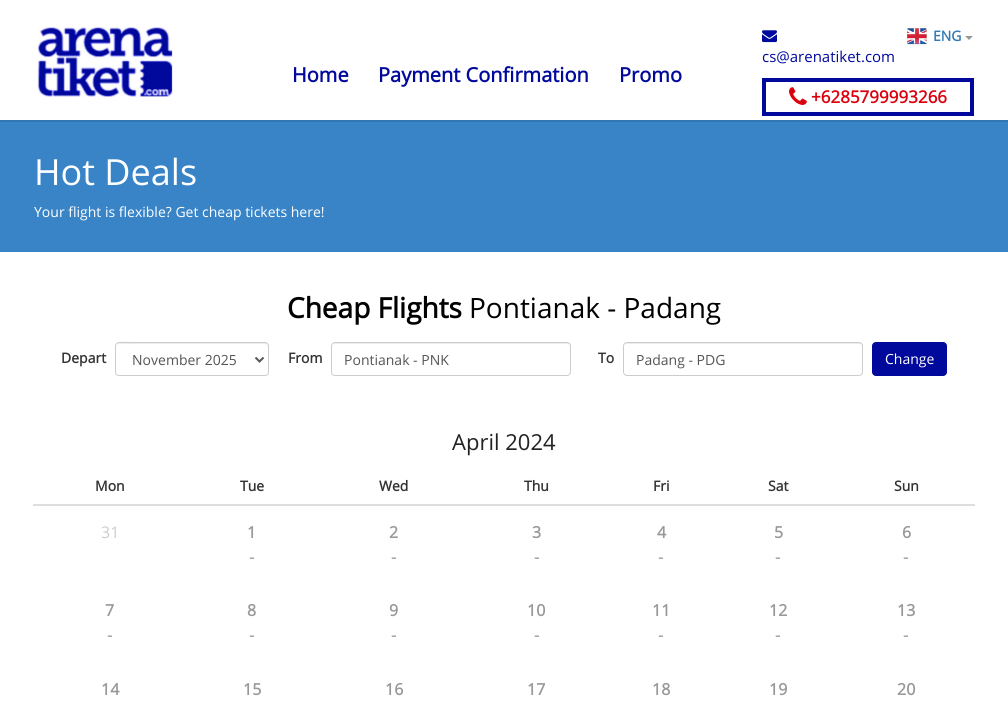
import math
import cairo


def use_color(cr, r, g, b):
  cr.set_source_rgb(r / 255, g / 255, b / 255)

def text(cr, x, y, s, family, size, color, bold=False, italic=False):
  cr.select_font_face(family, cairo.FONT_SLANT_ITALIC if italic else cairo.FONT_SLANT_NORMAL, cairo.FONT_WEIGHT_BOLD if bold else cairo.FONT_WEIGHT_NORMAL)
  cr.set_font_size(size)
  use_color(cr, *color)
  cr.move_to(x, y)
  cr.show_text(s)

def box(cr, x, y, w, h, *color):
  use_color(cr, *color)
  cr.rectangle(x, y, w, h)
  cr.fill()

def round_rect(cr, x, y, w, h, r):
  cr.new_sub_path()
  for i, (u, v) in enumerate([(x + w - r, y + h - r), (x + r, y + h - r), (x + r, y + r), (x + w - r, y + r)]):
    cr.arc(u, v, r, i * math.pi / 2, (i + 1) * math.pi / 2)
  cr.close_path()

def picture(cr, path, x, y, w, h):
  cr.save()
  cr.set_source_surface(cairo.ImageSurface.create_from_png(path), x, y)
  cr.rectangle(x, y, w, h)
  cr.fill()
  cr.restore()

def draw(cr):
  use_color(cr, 255, 255, 255)
  cr.paint()
  picture(cr, "img_01.png", 37, 27, 136, 70)
  picture(cr, "img_02.png", 907, 28, 20, 17)
  use_color(cr, 153, 153, 153)
  cr.new_path()
  cr.move_to(965, 36)
  cr.line_to(973, 36)
  cr.line_to(969, 40)
  cr.close_path()
  cr.fill()
  picture(cr, "img_03.png", 762, 30, 15, 13)
  cr.rectangle(764, 80, 208, 34)
  use_color(cr, 0, 9, 156)
  cr.set_line_width(4)
  cr.stroke()
  picture(cr, "img_04.png", 789, 87, 18, 18)
  box(cr, 0, 122, 1008, 130, 56, 132, 199)
  box(cr, 0, 120, 1008, 2, 50, 119, 179)
  use_color(cr, 236, 236, 236)
  cr.new_path()
  cr.move_to(119, 344)
  cr.line_to(265, 344)
  cr.curve_to(267, 344, 268, 345, 268, 347)
  cr.curve_to(268, 345, 268, 344, 266, 343)
  cr.line_to(143, 343)
  cr.curve_to(136, 343, 116, 338, 116, 347)
  cr.curve_to(116, 345, 117, 344, 119, 344)
  cr.close_path()
  cr.fill()
  round_rect(cr, 115.5, 342.5, 153, 33, 3.5)
  use_color(cr, 204, 204, 204)
  cr.set_line_width(1)
  cr.stroke()
  cr.new_path()
  cr.move_to(255.5, 357.5)
  cr.line_to(259.5, 361.5)
  cr.line_to(263.5, 357.5)
  use_color(cr, 85, 85, 85)
  cr.set_line_width(2)
  cr.stroke()
  use_color(cr, 236, 236, 236)
  cr.new_path()
  cr.move_to(335, 344)
  cr.line_to(568, 344)
  cr.line_to(570, 345)
  cr.line_to(570, 347)
  cr.curve_to(570, 345, 569, 343, 567, 343)
  cr.line_to(335, 343)
  cr.curve_to(333, 343, 332, 345, 332, 347)
  cr.curve_to(332, 345, 333, 344, 335, 344)
  cr.close_path()
  cr.fill()
  round_rect(cr, 331.5, 342.5, 239, 33, 3.5)
  use_color(cr, 204, 204, 204)
  cr.set_line_width(1)
  cr.stroke()
  use_color(cr, 236, 236, 236)
  cr.new_path()
  cr.move_to(627, 344)
  cr.line_to(860, 344)
  cr.line_to(862, 345)
  cr.line_to(862, 347)
  cr.curve_to(862, 345, 861, 343, 859, 343)
  cr.line_to(627, 343)
  cr.curve_to(625, 343, 624, 345, 624, 347)
  cr.curve_to(624, 345, 625, 344, 627, 344)
  cr.close_path()
  cr.fill()
  round_rect(cr, 623.5, 342.5, 239, 33, 3.5)
  use_color(cr, 204, 204, 204)
  cr.stroke()
  use_color(cr, 0, 9, 156)
  round_rect(cr, 872.5, 342.5, 74, 33, 3.5)
  cr.fill_preserve()
  cr.stroke()
  box(cr, 33, 504, 942, 2, 221, 221, 221)
  text(cr, 292, 82, "Home", "Open Sans", 20, (0, 9, 156), bold=True)
  text(cr, 378, 82, "Payment Confirmation", "Open Sans", 20, (0, 9, 156), bold=True)
  text(cr, 619, 82, "Promo", "Open Sans", 20, (0, 9, 156), bold=True)
  text(cr, 933, 41, "ENG", "Open Sans", 14, (51, 122, 183), bold=True)
  text(cr, 762, 62, "cs@arenatiket.com", "Open Sans", 15, (0, 9, 156))
  text(cr, 811, 103, "+6285799993266", "Open Sans", 17, (218, 0, 12), bold=True)
  text(cr, 34, 185, "Hot Deals", "Open Sans", 36, (255, 255, 255))
  text(cr, 34, 217, "Your flight is flexible? Get cheap tickets here!", "Open Sans", 14, (255, 255, 255))
  text(cr, 287, 318, "Cheap Flights", "Open Sans", 28, (0, 0, 0), bold=True)
  text(cr, 469, 318, "Pontianak - Padang", "Open Sans", 28, (0, 0, 0))
  text(cr, 61, 363, "Depart", "Open Sans", 14, (51, 51, 51), bold=True)
  text(cr, 132, 365, "November 2025", "Open Sans", 14, (85, 85, 85))
  text(cr, 288, 363, "From", "Open Sans", 14, (51, 51, 51), bold=True)
  text(cr, 344, 365, "Pontianak - PNK", "Open Sans", 14, (85, 85, 85))
  text(cr, 598, 363, "To", "Open Sans", 14, (51, 51, 51), bold=True)
  text(cr, 636, 365, "Padang - PDG", "Open Sans", 14, (85, 85, 85))
  text(cr, 885, 364, "Change", "Open Sans", 14, (255, 255, 255))
  text(cr, 452, 450, "April 2024", "Open Sans", 22, (34, 34, 34))
  text(cr, 95, 491, "Mon", "Open Sans", 14, (51, 51, 51), bold=True)
  text(cr, 240, 491, "Tue", "Open Sans", 14, (51, 51, 51), bold=True)
  text(cr, 379, 491, "Wed", "Open Sans", 14, (51, 51, 51), bold=True)
  text(cr, 524, 491, "Thu", "Open Sans", 14, (51, 51, 51), bold=True)
  text(cr, 653, 491, "Fri", "Open Sans", 14, (51, 51, 51), bold=True)
  text(cr, 768, 491, "Sat", "Open Sans", 14, (51, 51, 51), bold=True)
  text(cr, 894, 491, "Sun", "Open Sans", 14, (51, 51, 51), bold=True)
  text(cr, 101, 538, "31", "Open Sans", 16, (204, 204, 204))
  text(cr, 247, 538, "1", "Open Sans", 16, (153, 153, 153), bold=True)
  text(cr, 249, 563, "-", "Open Sans", 18, (153, 153, 153))
  text(cr, 389, 538, "2", "Open Sans", 16, (153, 153, 153), bold=True)
  text(cr, 391, 563, "-", "Open Sans", 18, (153, 153, 153))
  text(cr, 532, 538, "3", "Open Sans", 16, (153, 153, 153), bold=True)
  text(cr, 534, 563, "-", "Open Sans", 18, (153, 153, 153))
  text(cr, 657, 538, "4", "Open Sans", 16, (153, 153, 153), bold=True)
  text(cr, 658, 563, "-", "Open Sans", 18, (153, 153, 153))
  text(cr, 774, 538, "5", "Open Sans", 16, (153, 153, 153), bold=True)
  text(cr, 775, 563, "-", "Open Sans", 18, (153, 153, 153))
  text(cr, 902, 538, "6", "Open Sans", 16, (153, 153, 153), bold=True)
  text(cr, 903, 563, "-", "Open Sans", 18, (153, 153, 153))
  text(cr, 105, 616, "7", "Open Sans", 16, (153, 153, 153), bold=True)
  text(cr, 107, 641, "-", "Open Sans", 18, (153, 153, 153))
  text(cr, 247, 616, "8", "Open Sans", 16, (153, 153, 153), bold=True)
  text(cr, 249, 641, "-", "Open Sans", 18, (153, 153, 153))
  text(cr, 389, 616, "9", "Open Sans", 16, (153, 153, 153), bold=True)
  text(cr, 391, 641, "-", "Open Sans", 18, (153, 153, 153))
  text(cr, 527, 616, "10", "Open Sans", 16, (153, 153, 153), bold=True)
  text(cr, 534, 641, "-", "Open Sans", 18, (153, 153, 153))
  text(cr, 652, 616, "11", "Open Sans", 16, (153, 153, 153), bold=True)
  text(cr, 658, 641, "-", "Open Sans", 18, (153, 153, 153))
  text(cr, 769, 616, "12", "Open Sans", 16, (153, 153, 153), bold=True)
  text(cr, 775, 641, "-", "Open Sans", 18, (153, 153, 153))
  text(cr, 897, 616, "13", "Open Sans", 16, (153, 153, 153), bold=True)
  text(cr, 903, 641, "-", "Open Sans", 18, (153, 153, 153))
  text(cr, 101, 695, "14", "Open Sans", 16, (153, 153, 153), bold=True)
  text(cr, 243, 695, "15", "Open Sans", 16, (153, 153, 153), bold=True)
  text(cr, 385, 695, "16", "Open Sans", 16, (153, 153, 153), bold=True)
  text(cr, 527, 695, "17", "Open Sans", 16, (153, 153, 153), bold=True)
  text(cr, 652, 695, "18", "Open Sans", 16, (153, 153, 153), bold=True)
  text(cr, 769, 695, "19", "Open Sans", 16, (153, 153, 153), bold=True)
  text(cr, 897, 695, "20", "Open Sans", 16, (153, 153, 153), bold=True)


surface = cairo.ImageSurface(cairo.FORMAT_RGB24, 1008, 713)
cr = cairo.Context(surface)
options = cairo.FontOptions()
options.set_hint_metrics(cairo.HINT_METRICS_OFF)
options.set_hint_style(cairo.HINT_STYLE_NONE)
cr.set_font_options(options)
cr.set_miter_limit(4)
draw(cr)
surface.write_to_png("out.png")
